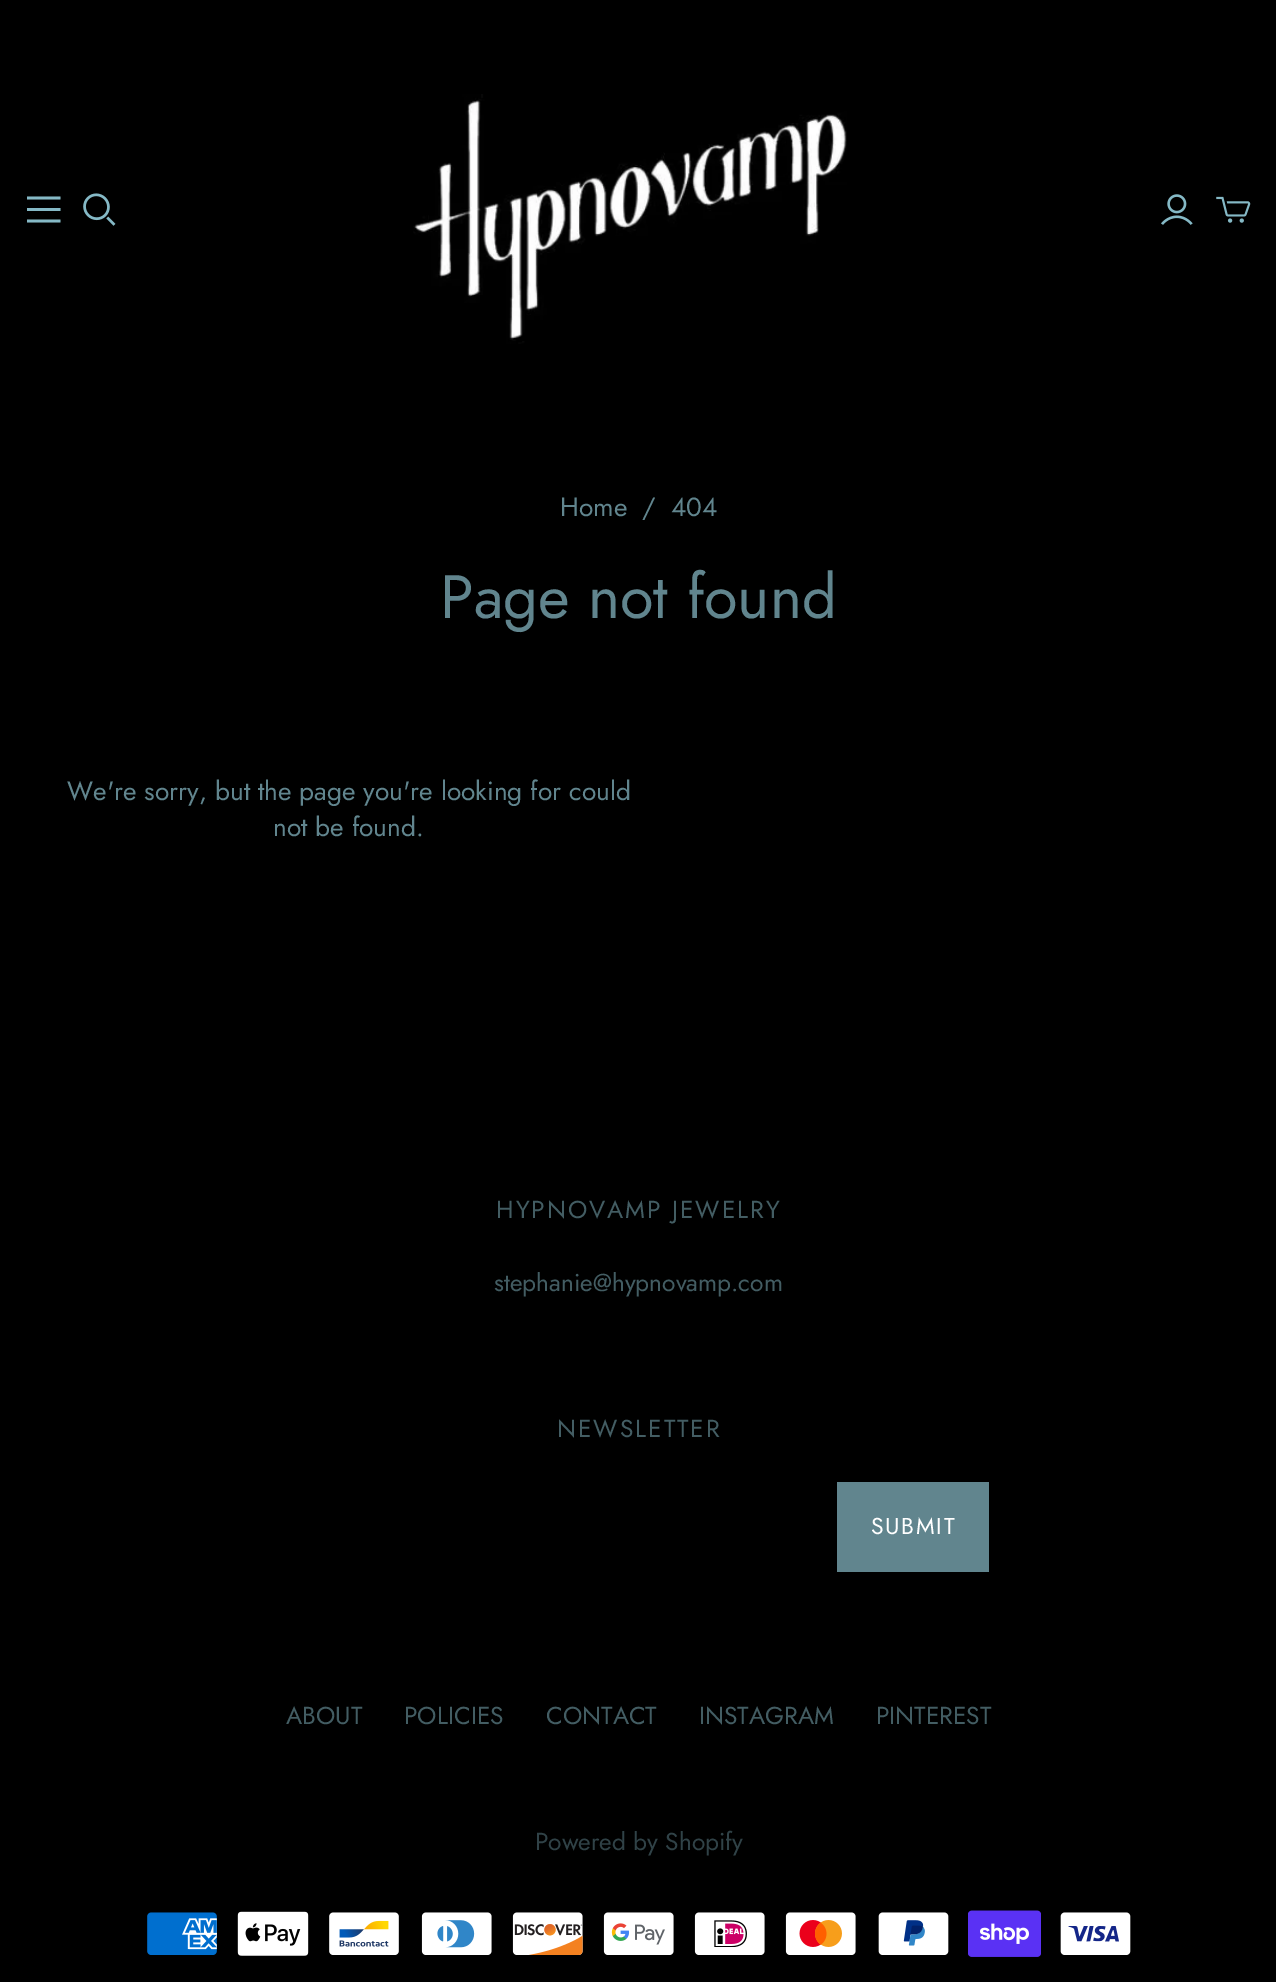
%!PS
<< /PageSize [1276 1982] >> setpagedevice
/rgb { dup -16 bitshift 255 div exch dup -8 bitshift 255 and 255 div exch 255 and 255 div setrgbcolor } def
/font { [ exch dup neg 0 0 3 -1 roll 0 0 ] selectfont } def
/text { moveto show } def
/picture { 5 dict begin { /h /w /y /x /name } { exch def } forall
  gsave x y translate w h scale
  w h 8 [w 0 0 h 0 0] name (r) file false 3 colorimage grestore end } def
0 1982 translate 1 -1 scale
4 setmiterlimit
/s1 { /Jost-Regular 26.25 font 16#61858E rgb } def
/s2 { /Jost-Regular 61.25 font 16#61858E rgb } def
/s3 { /Jost-Regular 24.5 font 16#435D63 rgb } def
/s4 { /Jost-Regular 24.5 font 16#304247 rgb } def
16#000000 rgb
0 0 1276 1982 rectfill
(pic1.raw) 413 94 434 250 picture
16#85B9C6 rgb
60.5 199.5 moveto 27 199.5 lineto 27 196.5 lineto 60.5 196.5 lineto closepath 60.5 211 moveto 27 211 lineto 27 208 lineto 60.5 208 lineto closepath 27 222.5 moveto 60.5 222.5 lineto 60.5 219.5 lineto 27 219.5 lineto closepath eofill
(pic2.raw) 83 193 33 33 picture
(pic3.raw) 1161 194 32 31 picture
(pic4.raw) 1216 196 35 27 picture
s1
(Home) 560 516 text
(/) 642 516 text
(404) 671 516 text
s2
(Page not found) 440 618 text
s1
(We're sorry, but the page you're looking for could) 67 800 text
(not be found.) 273 836 text
/Jost-Regular 24.5 font
16#435D63 rgb
496 1218 moveto 2 0 (HYPNOVAMP JEWELRY) ashow
(stephanie@hypnovamp.com) 494 1291 text
557 1437 moveto 2 0 (NEWSLETTER) ashow
16#61858E rgb
837 1482 152 90 rectfill
/Jost-Regular 23 font
16#FFFFFF rgb
871 1534 moveto 1.75 0 (SUBMIT) ashow
s3
(ABOUT) 286 1724 text
(POLICIES) 404 1724 text
(CONTACT) 546 1724 text
(INSTAGRAM) 699 1724 text
(PINTEREST) 876 1724 text
s4
(Powered by Shopify) 535 1850 text
(pic5.raw) 147 1912 70 43 picture
(pic6.raw) 237 1911 72 45 picture
(pic7.raw) 329 1912 70 43 picture
(pic8.raw) 421 1912 71 43 picture
(pic9.raw) 512 1912 71 43 picture
(pic10.raw) 603 1912 71 43 picture
(pic11.raw) 694 1912 71 43 picture
(pic12.raw) 785 1912 71 43 picture
(pic13.raw) 878 1912 71 43 picture
(pic14.raw) 968 1910 73 47 picture
(pic15.raw) 1060 1912 71 43 picture
showpage
